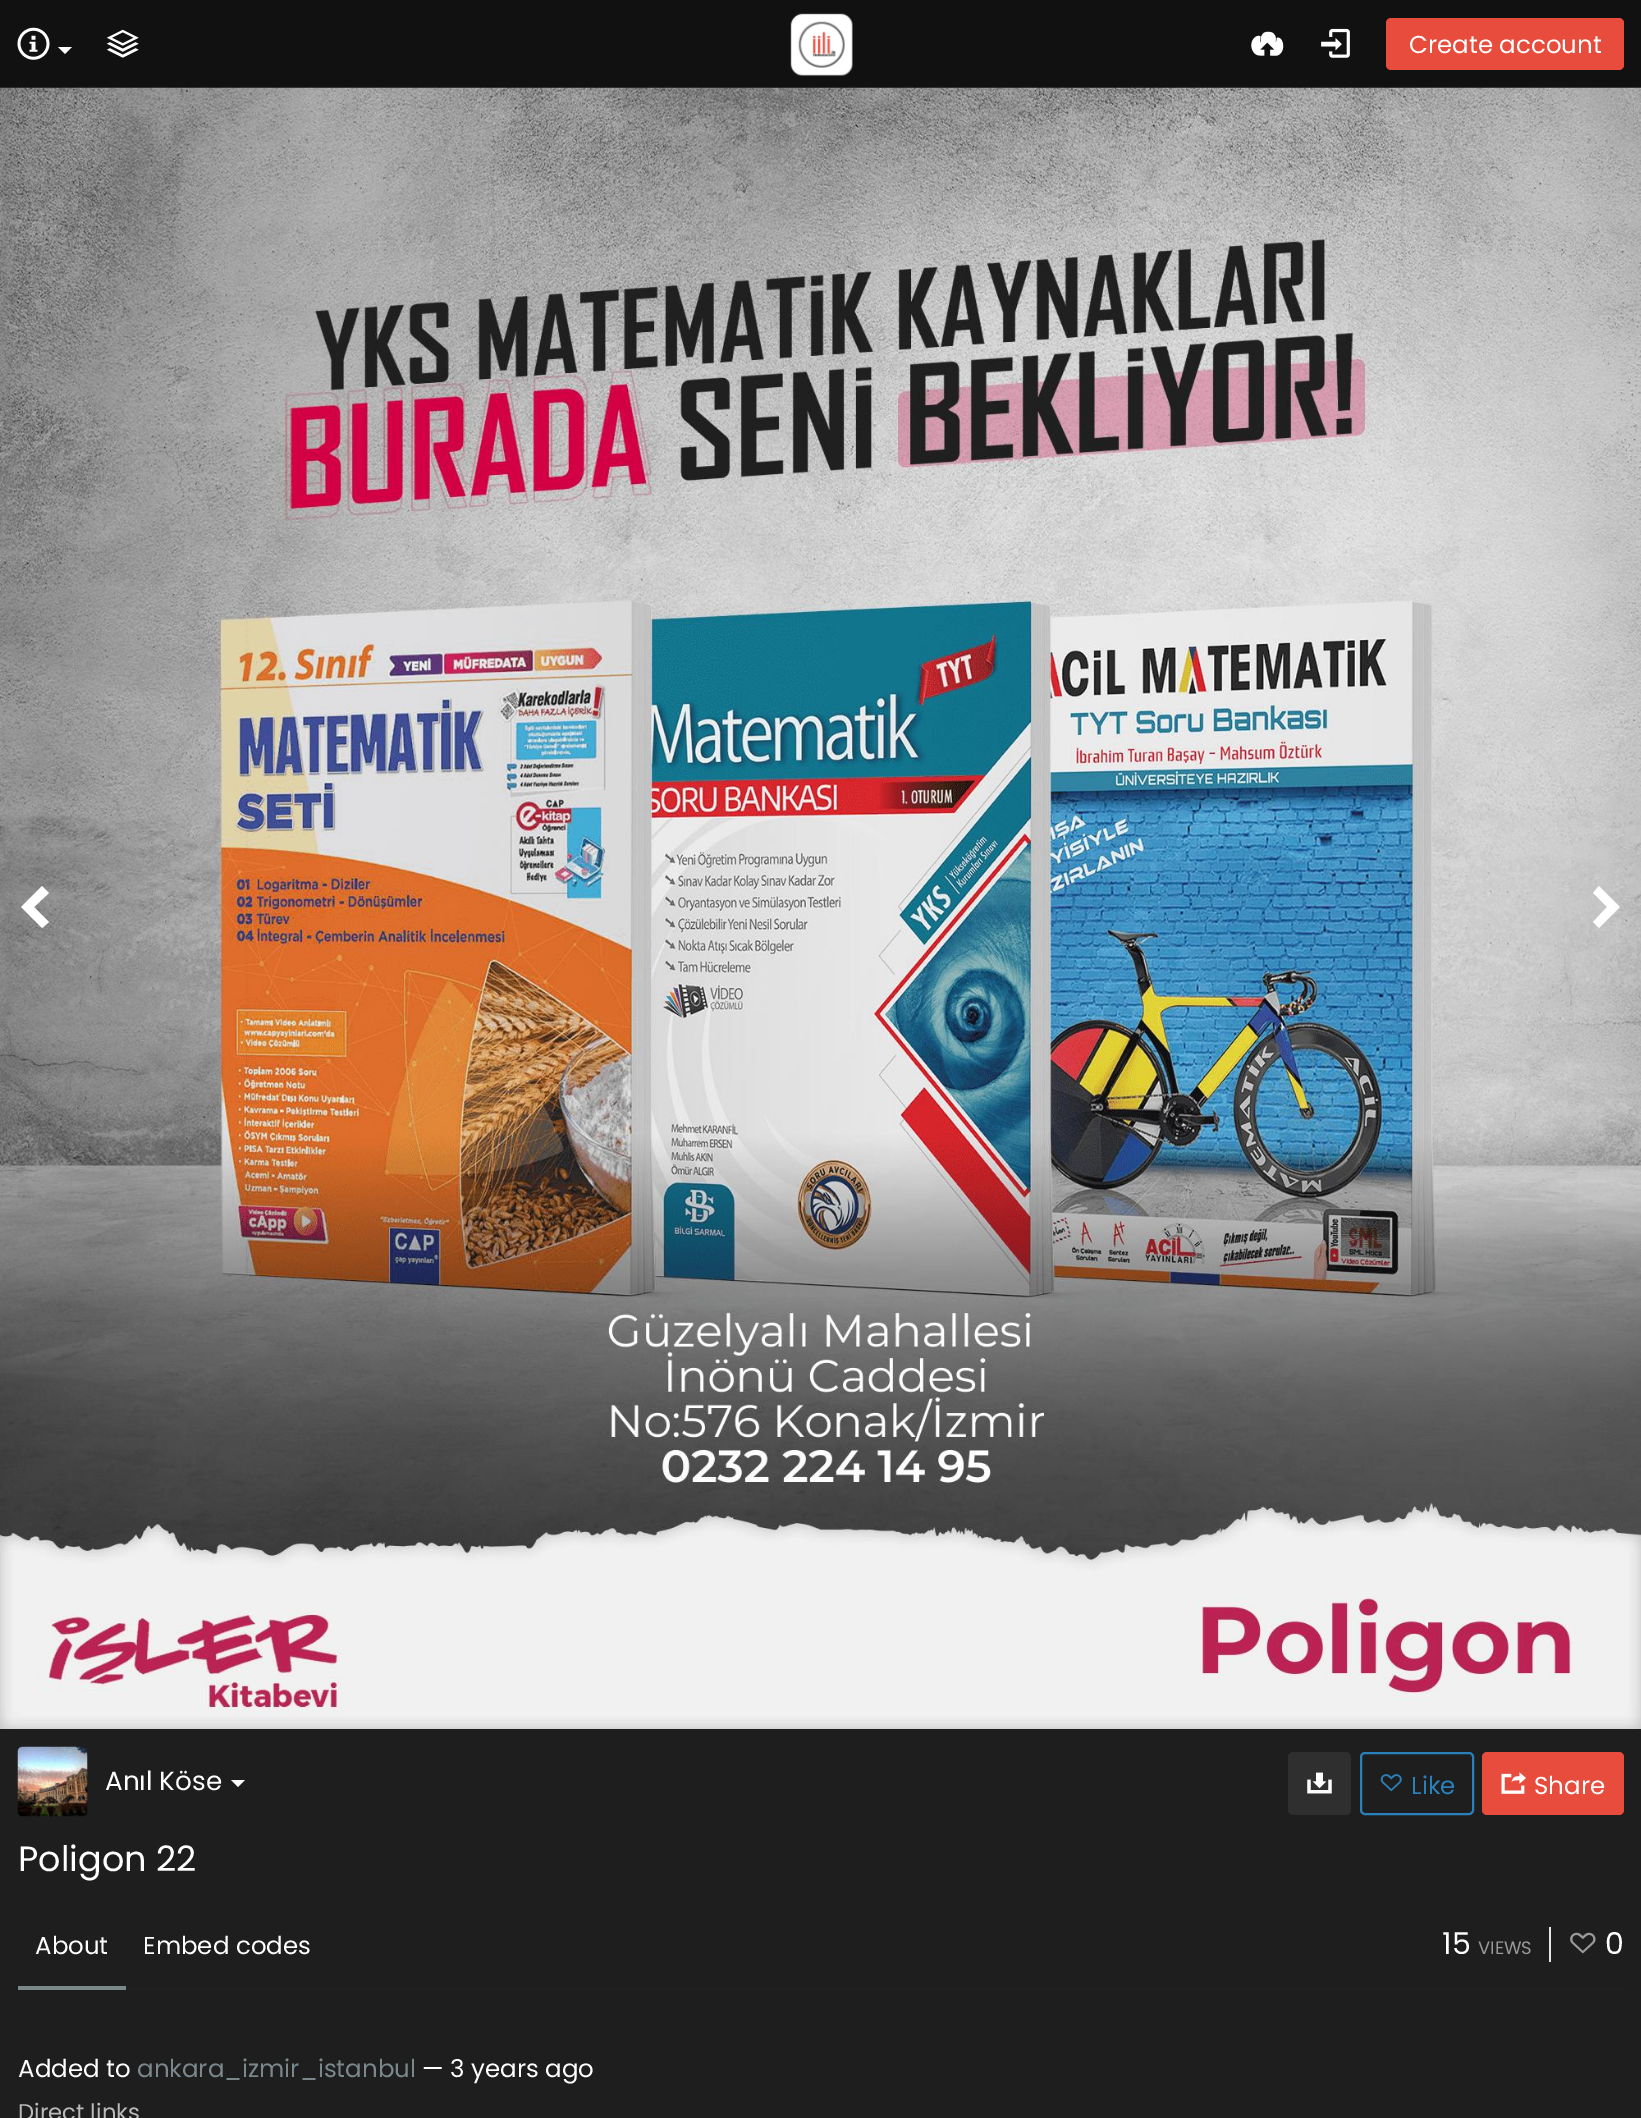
%!PS
<< /PageSize [1641 2118] >> setpagedevice
/rgb { dup -16 bitshift 255 div exch dup -8 bitshift 255 and 255 div exch 255 and 255 div setrgbcolor } def
/font { [ exch dup neg 0 0 3 -1 roll 0 0 ] selectfont } def
/text { moveto show } def
/roundrect { 5 dict begin { /r /h /w /y /x } { exch def } forall
  x r add y moveto x w add y 2 copy h add r arct x w add y h add x 1 index r arct
  x y h add x y r arct x y 2 copy exch w add exch r arct closepath end } def
/picture { 5 dict begin { /h /w /y /x /name } { exch def } forall
  gsave x y translate w h scale
  w h 8 [w 0 0 h 0 0] name (r) file false 3 colorimage grestore end } def
0 2118 translate 1 -1 scale
4 setmiterlimit
/s1 { /Poppins-Regular 24.5 font 16#FFFFFF rgb } def
/s2 { /Poppins-Regular 26.25 font 16#FFFFFF rgb } def
/s3 { /Poppins-Regular 24.5 font 16#2A80B9 rgb } def
/s4 { /Poppins-Regular 35 font 16#FFFFFF rgb } def
/s5 { /Poppins-Regular 30 font 16#FFFFFF rgb } def
/s6 { /Poppins-Regular 18 font 16#999999 rgb } def
/s7 { /Poppins-Regular 24.5 font 16#7A888C rgb } def
/s8 { /Poppins-Regular 22.75 font 16#BBBBBB rgb } def
16#1E1E1E rgb
0 0 1641 2118 rectfill
16#111111 rgb
0 0 1641 88 rectfill
(pic1.raw) 17 27 33 33 picture
16#FFFFFF rgb
58 47 moveto 72 47 lineto 65 54 lineto closepath fill
(pic2.raw) 106 29 33 29 picture
(pic3.raw) 790 13 63 63 picture
(pic4.raw) 1251 31 33 25 picture
(pic5.raw) 1321 28 29 30 picture
16#E84C3D rgb
1386 18 238 52 5 roundrect fill
s1
(Create account) 1409 53 text
(pic6.raw) 0 87 1641 1642 picture
42 886 moveto 21 907 lineto 42 928 lineto 49 922 lineto 34 907 lineto 49 893 lineto closepath fill
1599 886 moveto 1620 907 lineto 1599 928 lineto 1593 922 lineto 1607 907 lineto 1593 893 lineto closepath fill
(pic7.raw) 17 1746 71 71 picture
s2
(Anıl Köse) 105 1790 text
231 1780 moveto 245 1780 lineto 238 1787 lineto closepath fill
16#2F2F2F rgb
1288 1752 63 63 5 roundrect fill
(pic8.raw) 1307 1772 25 22 picture
16#2A80B9 rgb
2 setlinewidth
1361 1753 112 61 4 roundrect stroke
(pic9.raw) 1380 1774 22 18 picture
s3
(Like) 1411 1794 text
16#E84C3D rgb
1482 1752 142 63 5 roundrect fill
(pic10.raw) 1501 1772 25 22 picture
s1
(Share) 1534 1794 text
s4
(Poligon 22) 18 1871 text
16#212121 rgb
126 1988 1498 2 rectfill
16#7A888C rgb
18 1986 108 4 rectfill
s1
(About) 35 1954 text
(Embed codes) 143 1954 text
s5
(15) 1442 1954 text
s6
(VIEWS) 1478 1954 text
16#E5E5E5 rgb
1549 1927 2 35 rectfill
(pic11.raw) 1570 1932 26 22 picture
s5
(0) 1605 1954 text
s1
(Added to) 18 2077 text
s7
(ankara_izmir_istanbul) 137 2077 text
s1
(— 3 years ago) 422 2077 text
s8
(Direct links) 18 2120 text
showpage
